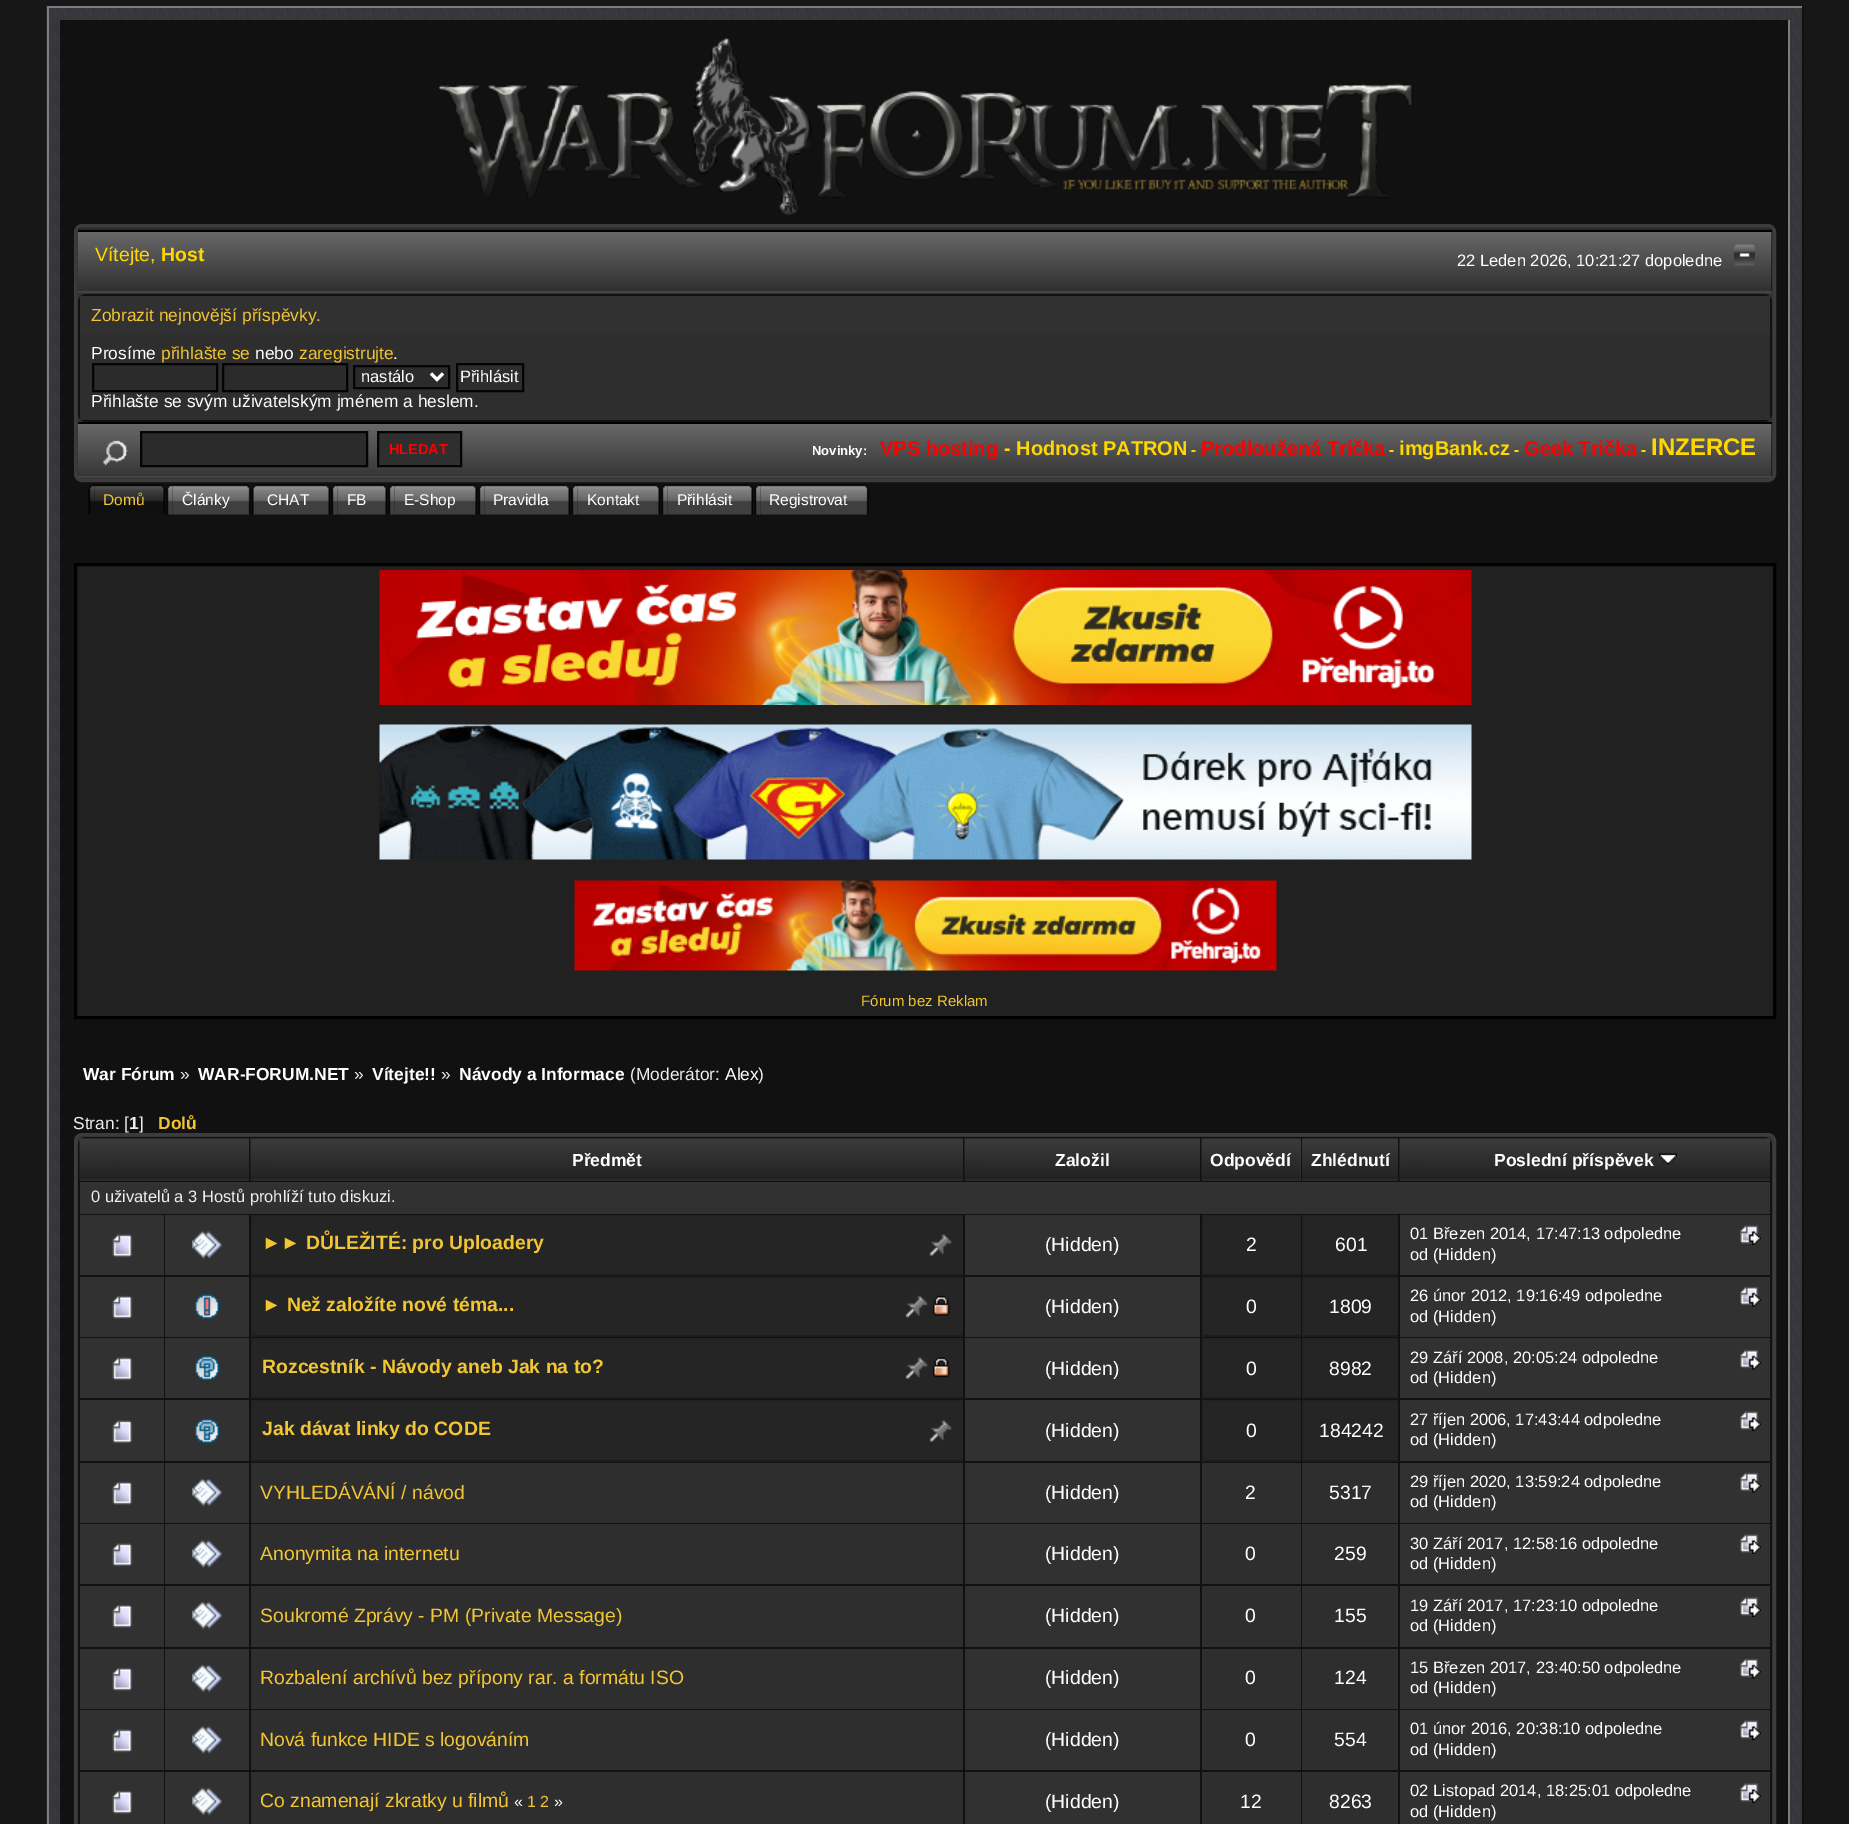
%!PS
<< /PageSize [1849 1824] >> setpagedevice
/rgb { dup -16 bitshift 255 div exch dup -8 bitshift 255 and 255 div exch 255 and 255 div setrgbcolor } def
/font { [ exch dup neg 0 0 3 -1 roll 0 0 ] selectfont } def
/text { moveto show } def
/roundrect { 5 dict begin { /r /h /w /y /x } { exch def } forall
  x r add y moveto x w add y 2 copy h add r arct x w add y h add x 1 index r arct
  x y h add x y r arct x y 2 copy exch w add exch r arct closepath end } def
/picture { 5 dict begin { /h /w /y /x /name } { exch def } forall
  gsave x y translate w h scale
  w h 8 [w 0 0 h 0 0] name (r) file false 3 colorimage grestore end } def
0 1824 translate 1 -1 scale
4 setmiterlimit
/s1 { /LiberationSans-Regular 19.4 font 16#FFD700 rgb } def
/s2 { /LiberationSans-Bold 19.4 font 16#FFD700 rgb } def
/s3 { /LiberationSans-Regular 16.5 font 16#FFFFFF rgb } def
/s4 { /LiberationSans-Regular 17.4 font 16#F1C534 rgb } def
/s5 { /LiberationSans-Regular 17.4 font 16#FFFFFF rgb } def
/s6 { /LiberationSans-Bold 14.5 font 16#FF0000 rgb } def
/s7 { /LiberationSans-Bold 13 font 16#FFFFFF rgb } def
/s8 { /LiberationSans-Bold 20 font 16#FF0000 rgb } def
/s9 { /LiberationSans-Bold 20 font 16#FFD700 rgb } def
/s10 { /LiberationSans-Bold 15.5 font 16#FFD700 rgb } def
/s11 { /LiberationSans-Bold 24 font 16#FFD700 rgb } def
/s12 { /LiberationSans-Regular 15.5 font 16#F1C534 rgb } def
/s13 { /LiberationSans-Regular 15.5 font 16#FFFFFF rgb } def
/s14 { /LiberationSans-Regular 15 font 16#F1C534 rgb } def
/s15 { /LiberationSans-Bold 17.4 font 16#FFFFFF rgb } def
/s16 { /LiberationSans-Regular 17.4 font 16#EEEEEE rgb } def
/s17 { /LiberationSans-Bold 17.4 font 16#EEEEEE rgb } def
/s18 { /LiberationSans-Bold 17.4 font 16#F1C534 rgb } def
/s19 { /LiberationSans-Bold 17.5 font 16#FFFFFF rgb } def
/s20 { /LiberationSans-Regular 16.5 font 16#EEEEEE rgb } def
/s21 { /LiberationSans-Bold 19.4 font 16#F1C534 rgb } def
/s22 { /LiberationSans-Regular 19.4 font 16#FFFFFF rgb } def
/s23 { /LiberationSans-Regular 19.4 font 16#F1C534 rgb } def
/s24 { /LiberationSans-Regular 16 font 16#FFFFFF rgb } def
/s25 { /LiberationSans-Regular 16 font 16#F1C534 rgb } def
16#171717 rgb
0 0 1849 1824 rectfill
(pic1.raw) 46 6 1756 1818 picture
16#7C7C7C rgb
47 6 1756 2 rectfill
16#111111 rgb
1802 6 2 1818 rectfill
16#7C7C7C rgb
47 6 2 1818 rectfill
16#111111 rgb
60 20 1728 1804 rectfill
16#7C7C7C rgb
1788 20 2 1804 rectfill
(pic2.raw) 438 37 975 178 picture
16#333333 rgb
75.5 225.5 1699 255 6.5 roundrect gsave fill grestore
16#3C3C3C rgb
3 setlinewidth
stroke
16#2A2A2A rgb
78 228 1694 2 rectfill
16#000000 rgb
1771 232 1 59 rectfill
(pic3.raw) 78 232 1694 59 picture
78 230 1694 2 rectfill
16#434343 rgb
78 291 1694 2 rectfill
s1
(Vítejte,) 95 261 text
s2
(Host) 161 261 text
s3
(22 Leden 2026, 10:21:27 dopoledne) 1457 266 text
(pic4.raw) 1734 244 21 22 picture
16#111111 rgb
78 294 1694 128 8 roundrect fill
16#313131 rgb
80 296 1690 37 rectfill
s4
(Zobrazit nejnovější příspěvky.) 91 321 text
16#2E2E2E rgb
80 333 1690 87 rectfill
s5
(Prosíme) 91 359 text
s4
(přihlašte se) 161 359 text
s5
(nebo) 255 359 text
s4
(zaregistrujte) 299 359 text
s5
(.) 393 359 text
16#2B2B2B rgb
93 364 moveto 217 364 lineto 217 391 lineto 93 391 lineto closepath gsave fill grestore
16#040404 rgb
2 setlinewidth
stroke
16#2B2B2B rgb
223 364 moveto 347 364 lineto 347 391 lineto 223 391 lineto closepath gsave fill grestore
16#040404 rgb
stroke
16#2B2B2B rgb
354 366 moveto 449 366 lineto 449 388 lineto 354 388 lineto closepath gsave fill grestore
16#040404 rgb
stroke
16#FFFFFF rgb
3 setlinewidth
431 373.5 moveto 437 379.5 lineto 443 373.5 lineto stroke
s3
(nastálo) 361 382 text
16#040404 rgb
2 setlinewidth
457 364 66 27 rectstroke
s3
(Přihlásit) 460 382 text
s5
(Přihlašte se svým uživatelským jménem a heslem.) 91 407 text
16#000000 rgb
1771 424 1 52 rectfill
(pic5.raw) 78 424 1694 52 picture
78 422 1694 2 rectfill
16#434343 rgb
78 476 1694 2 rectfill
(pic6.raw) 103 440 25 26 picture
16#2B2B2B rgb
141 432 moveto 367 432 lineto 367 466 lineto 141 466 lineto closepath gsave fill grestore
16#040404 rgb
stroke
16#2F2F2F rgb
378 432 moveto 461 432 lineto 461 466 lineto 378 466 lineto closepath gsave fill grestore
16#040404 rgb
stroke
s6
(HLEDAT) 389 454 text
s7
(Novinky:) 812 455 text
s8
(VPS hosting) 880 455 text
s9
(- Hodnost PATRON) 1004 455 text
s10
(-) 1191 455 text
s8
(Prodloužená Trička) 1201 455 text
s10
(-) 1389 455 text
s9
(imgBank.cz) 1399 455 text
s10
(-) 1514 455 text
s8
(Geek Trička) 1524 455 text
s10
(-) 1641 455 text
s11
(INZERCE) 1651 455 text
(pic7.raw) 88 484 7 31 picture
(pic8.raw) 94 484 71 31 picture
s12
(Domů) 103 505 text
(pic9.raw) 166 484 7 31 picture
(pic10.raw) 172 484 79 31 picture
s13
(Články) 182 505 text
(pic11.raw) 252 484 6 31 picture
(pic12.raw) 258 484 72 31 picture
(CHAT) 267 505 text
(pic9.raw) 331 484 7 31 picture
(pic13.raw) 337 484 50 31 picture
(FB) 347 505 text
(pic14.raw) 388 484 7 31 picture
(pic15.raw) 394 484 83 31 picture
(E-Shop) 404 505 text
(pic9.raw) 478 484 7 31 picture
(pic16.raw) 484 484 86 31 picture
(Pravidla) 493 505 text
(pic14.raw) 571 484 7 31 picture
(pic17.raw) 577 484 83 31 picture
(Kontakt) 587 505 text
(pic14.raw) 661 484 7 31 picture
(pic18.raw) 667 484 86 31 picture
(Přihlásit) 677 505 text
(pic14.raw) 754 484 7 31 picture
(pic19.raw) 760 484 109 31 picture
(Registrovat) 769 505 text
16#212121 rgb
75.5 564.5 moveto 1774.5 564.5 lineto 1774.5 1017.5 lineto 75.5 1017.5 lineto closepath gsave fill grestore
16#000000 rgb
3 setlinewidth
stroke
(pic20.raw) 379 570 1093 135 picture
(pic21.raw) 379 724 1093 136 picture
(pic22.raw) 574 880 703 91 picture
s14
(Fórum bez Reklam) 861 1006 text
s15
(War Fórum) 83 1080 text
s16
(») 180 1080 text
s15
(WAR-FORUM.NET) 198 1080 text
s16
(») 354 1080 text
s15
(Vítejte!!) 372 1080 text
s16
(») 441 1080 text
s15
(Návody a Informace) 459 1080 text
s16
(\(Moderátor:) 630 1080 text
s5
(Alex) 725 1080 text
s16
(\)) 758 1080 text
(Stran: [) 73 1129 text
s17
(1) 129 1129 text
s16
(]) 139 1129 text
s18
(Dolů) 158 1129 text
16#333333 rgb
75.5 1134.5 1699 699 6.5 roundrect gsave fill grestore
16#3C3C3C rgb
stroke
16#111111 rgb
78 1137 1694 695 8 roundrect fill
(pic23.raw) 79 1138 170 43 picture
16#2A2A2A rgb
80 1179 169 2 rectfill
(pic24.raw) 250 1138 713 43 picture
251 1179 712 2 rectfill
s19
(Předmět) 572 1166 text
(pic25.raw) 964 1138 236 43 picture
16#2A2A2A rgb
965 1179 235 2 rectfill
s19
(Založil) 1055 1166 text
16#3A3A3A rgb
1300 1139 1 40 rectfill
(pic26.raw) 1201 1138 100 43 picture
16#2A2A2A rgb
1202 1179 99 2 rectfill
s19
(Odpovědí) 1210 1166 text
(pic27.raw) 1302 1138 96 41 picture
16#2A2A2A rgb
1302 1179 96 2 rectfill
s19
(Zhlédnutí) 1311 1166 text
(pic28.raw) 1399 1138 371 43 picture
16#2A2A2A rgb
1400 1179 370 2 rectfill
s19
(Poslední příspěvek) 1494 1166 text
(pic29.raw) 1659 1153 18 12 picture
16#313131 rgb
80 1182 1690 32 rectfill
s20
(0 uživatelů a 3 Hostů prohlíží tuto diskuzi.) 91 1202 text
16#313131 rgb
80 1215 84 60 rectfill
(pic30.raw) 112 1234 21 24 picture
165 1215 84 60 rectfill
(pic31.raw) 192 1231 30 28 picture
16#252525 rgb
253 1217 710 57 rectfill
16#222222 rgb
251 1215 712 2 rectfill
16#1C1C1C rgb
251 1274 712 2 rectfill
16#222222 rgb
251 1215 2 60 rectfill
s21
(►► DŮLEŽITÉ: pro Uploadery) 262 1249 text
(pic32.raw) 929 1234 23 22 picture
16#313131 rgb
965 1215 235 60 rectfill
s22
(\(Hidden\)) 1045 1251 text
16#252525 rgb
1204 1217 97 57 rectfill
16#222222 rgb
1202 1215 99 2 rectfill
16#1C1C1C rgb
1202 1274 99 2 rectfill
16#222222 rgb
1202 1215 2 60 rectfill
s22
(2) 1246 1251 text
16#252525 rgb
1304 1217 94 57 rectfill
16#222222 rgb
1302 1215 96 2 rectfill
16#1C1C1C rgb
1302 1274 96 2 rectfill
16#222222 rgb
1302 1215 2 60 rectfill
s22
(601) 1335 1251 text
16#313131 rgb
1400 1215 370 60 rectfill
s3
(01 Březen 2014, 17:47:13 odpoledne) 1410 1239 text
(pic33.raw) 1740 1225 21 20 picture
(od \(Hidden\)) 1410 1260 text
16#313131 rgb
80 1277 84 60 rectfill
(pic34.raw) 112 1295 21 24 picture
165 1277 84 60 rectfill
(pic35.raw) 195 1294 24 25 picture
16#252525 rgb
253 1279 710 56 rectfill
16#222222 rgb
251 1277 712 2 rectfill
16#1C1C1C rgb
251 1335 712 2 rectfill
16#222222 rgb
251 1277 2 60 rectfill
s21
(► Než založíte nové téma...) 262 1311 text
(pic36.raw) 905 1295 23 23 picture
(pic37.raw) 932 1295 18 21 picture
16#313131 rgb
965 1277 235 60 rectfill
s22
(\(Hidden\)) 1045 1313 text
16#252525 rgb
1204 1279 97 56 rectfill
16#222222 rgb
1202 1277 99 2 rectfill
16#1C1C1C rgb
1202 1335 99 2 rectfill
16#222222 rgb
1202 1277 2 60 rectfill
s22
(0) 1246 1313 text
16#252525 rgb
1304 1279 94 56 rectfill
16#222222 rgb
1302 1277 96 2 rectfill
16#1C1C1C rgb
1302 1335 96 2 rectfill
16#222222 rgb
1302 1277 2 60 rectfill
s22
(1809) 1329 1313 text
16#313131 rgb
1400 1277 370 60 rectfill
s3
(26 únor 2012, 19:16:49 odpoledne) 1410 1301 text
(pic38.raw) 1740 1286 21 21 picture
(od \(Hidden\)) 1410 1322 text
16#313131 rgb
80 1338 84 60 rectfill
(pic30.raw) 112 1357 21 24 picture
165 1338 84 60 rectfill
(pic39.raw) 195 1356 24 24 picture
16#252525 rgb
253 1340 710 57 rectfill
16#222222 rgb
251 1338 712 2 rectfill
16#1C1C1C rgb
251 1397 712 2 rectfill
16#222222 rgb
251 1338 2 60 rectfill
s21
(Rozcestník - Návody aneb Jak na to?) 262 1373 text
(pic32.raw) 905 1357 23 22 picture
(pic40.raw) 932 1357 18 21 picture
16#313131 rgb
965 1338 235 60 rectfill
s22
(\(Hidden\)) 1045 1375 text
16#252525 rgb
1204 1340 97 57 rectfill
16#222222 rgb
1202 1338 99 2 rectfill
16#1C1C1C rgb
1202 1397 99 2 rectfill
16#222222 rgb
1202 1338 2 60 rectfill
s22
(0) 1246 1375 text
16#252525 rgb
1304 1340 94 57 rectfill
16#222222 rgb
1302 1338 96 2 rectfill
16#1C1C1C rgb
1302 1397 96 2 rectfill
16#222222 rgb
1302 1338 2 60 rectfill
s22
(8982) 1329 1375 text
16#313131 rgb
1400 1338 370 60 rectfill
s3
(29 Září 2008, 20:05:24 odpoledne) 1410 1363 text
(pic38.raw) 1740 1349 21 21 picture
(od \(Hidden\)) 1410 1383 text
16#313131 rgb
80 1400 84 61 rectfill
(pic30.raw) 112 1420 21 24 picture
165 1400 84 61 rectfill
(pic39.raw) 195 1419 24 24 picture
16#252525 rgb
253 1402 710 58 rectfill
16#222222 rgb
251 1400 712 2 rectfill
16#1C1C1C rgb
251 1460 712 2 rectfill
16#222222 rgb
251 1400 2 61 rectfill
s21
(Jak dávat linky do CODE) 262 1435 text
(pic32.raw) 929 1420 23 22 picture
16#313131 rgb
965 1400 235 61 rectfill
s22
(\(Hidden\)) 1045 1437 text
16#252525 rgb
1204 1402 97 58 rectfill
16#222222 rgb
1202 1400 99 2 rectfill
16#1C1C1C rgb
1202 1460 99 2 rectfill
16#222222 rgb
1202 1400 2 61 rectfill
s22
(0) 1246 1437 text
16#252525 rgb
1304 1402 94 58 rectfill
16#222222 rgb
1302 1400 96 2 rectfill
16#1C1C1C rgb
1302 1460 96 2 rectfill
16#222222 rgb
1302 1400 2 61 rectfill
s22
(184242) 1319 1437 text
16#313131 rgb
1400 1400 370 61 rectfill
s3
(27 říjen 2006, 17:43:44 odpoledne) 1410 1425 text
(pic33.raw) 1740 1411 21 20 picture
(od \(Hidden\)) 1410 1445 text
16#313131 rgb
80 1463 84 60 rectfill
(pic34.raw) 112 1481 21 24 picture
165 1463 84 60 rectfill
(pic41.raw) 192 1478 30 29 picture
16#2E2E2E rgb
251 1463 712 60 rectfill
s23
(VYHLEDÁVÁNÍ / návod) 260 1499 text
16#313131 rgb
965 1463 235 60 rectfill
s22
(\(Hidden\)) 1045 1499 text
16#2E2E2E rgb
1202 1463 99 60 rectfill
s22
(2) 1245 1499 text
16#2E2E2E rgb
1302 1463 96 60 rectfill
s22
(5317) 1329 1499 text
16#313131 rgb
1400 1463 370 60 rectfill
s3
(29 říjen 2020, 13:59:24 odpoledne) 1410 1487 text
(pic38.raw) 1740 1472 21 21 picture
(od \(Hidden\)) 1410 1507 text
16#313131 rgb
80 1524 84 60 rectfill
(pic30.raw) 112 1543 21 24 picture
165 1524 84 60 rectfill
(pic31.raw) 192 1540 30 28 picture
16#2E2E2E rgb
251 1524 712 60 rectfill
s23
(Anonymita na internetu) 260 1560 text
16#313131 rgb
965 1524 235 60 rectfill
s22
(\(Hidden\)) 1045 1560 text
16#2E2E2E rgb
1202 1524 99 60 rectfill
s22
(0) 1245 1560 text
16#2E2E2E rgb
1302 1524 96 60 rectfill
s22
(259) 1334 1560 text
16#313131 rgb
1400 1524 370 60 rectfill
s3
(30 Září 2017, 12:58:16 odpoledne) 1410 1549 text
(pic33.raw) 1740 1534 21 20 picture
(od \(Hidden\)) 1410 1569 text
16#313131 rgb
80 1586 84 61 rectfill
(pic34.raw) 112 1604 21 24 picture
165 1586 84 61 rectfill
(pic41.raw) 192 1601 30 29 picture
16#2E2E2E rgb
251 1586 712 61 rectfill
s23
(Soukromé Zprávy - PM \(Private Message\)) 260 1622 text
16#313131 rgb
965 1586 235 61 rectfill
s22
(\(Hidden\)) 1045 1622 text
16#2E2E2E rgb
1202 1586 99 61 rectfill
s22
(0) 1245 1622 text
16#2E2E2E rgb
1302 1586 96 61 rectfill
s22
(155) 1334 1622 text
16#313131 rgb
1400 1586 370 61 rectfill
s3
(19 Září 2017, 17:23:10 odpoledne) 1410 1611 text
(pic33.raw) 1740 1597 21 20 picture
(od \(Hidden\)) 1410 1631 text
16#313131 rgb
80 1649 84 60 rectfill
(pic34.raw) 112 1667 21 24 picture
165 1649 84 60 rectfill
(pic41.raw) 192 1664 30 29 picture
16#2E2E2E rgb
251 1649 712 60 rectfill
s23
(Rozbalení archívů bez přípony rar. a formátu ISO) 260 1684 text
16#313131 rgb
965 1649 235 60 rectfill
s22
(\(Hidden\)) 1045 1684 text
16#2E2E2E rgb
1202 1649 99 60 rectfill
s22
(0) 1245 1684 text
16#2E2E2E rgb
1302 1649 96 60 rectfill
s22
(124) 1334 1684 text
16#313131 rgb
1400 1649 370 60 rectfill
s3
(15 Březen 2017, 23:40:50 odpoledne) 1410 1673 text
(pic38.raw) 1740 1658 21 21 picture
(od \(Hidden\)) 1410 1693 text
16#313131 rgb
80 1710 84 60 rectfill
(pic30.raw) 112 1729 21 24 picture
165 1710 84 60 rectfill
(pic31.raw) 192 1726 30 28 picture
16#2E2E2E rgb
251 1710 712 60 rectfill
s23
(Nová funkce HIDE s logováním) 260 1746 text
16#313131 rgb
965 1710 235 60 rectfill
s22
(\(Hidden\)) 1045 1746 text
16#2E2E2E rgb
1202 1710 99 60 rectfill
s22
(0) 1245 1746 text
16#2E2E2E rgb
1302 1710 96 60 rectfill
s22
(554) 1334 1746 text
16#313131 rgb
1400 1710 370 60 rectfill
s3
(01 únor 2016, 20:38:10 odpoledne) 1410 1734 text
(pic33.raw) 1740 1720 21 20 picture
(od \(Hidden\)) 1410 1755 text
16#313131 rgb
80 1772 84 52 rectfill
(pic34.raw) 112 1790 21 24 picture
165 1772 84 52 rectfill
(pic41.raw) 192 1787 30 29 picture
16#2E2E2E rgb
251 1772 712 52 rectfill
s23
(Co znamenají zkratky u filmů) 260 1807 text
s24
(«) 514 1807 text
s25
(1 2) 527 1807 text
s24
(») 554 1807 text
16#313131 rgb
965 1772 235 52 rectfill
s22
(\(Hidden\)) 1045 1808 text
16#2E2E2E rgb
1202 1772 99 52 rectfill
s22
(12) 1240 1808 text
16#2E2E2E rgb
1302 1772 96 52 rectfill
s22
(8263) 1329 1808 text
16#313131 rgb
1400 1772 370 52 rectfill
s3
(02 Listopad 2014, 18:25:01 odpoledne) 1410 1796 text
(pic33.raw) 1740 1783 21 20 picture
(od \(Hidden\)) 1410 1817 text
showpage
